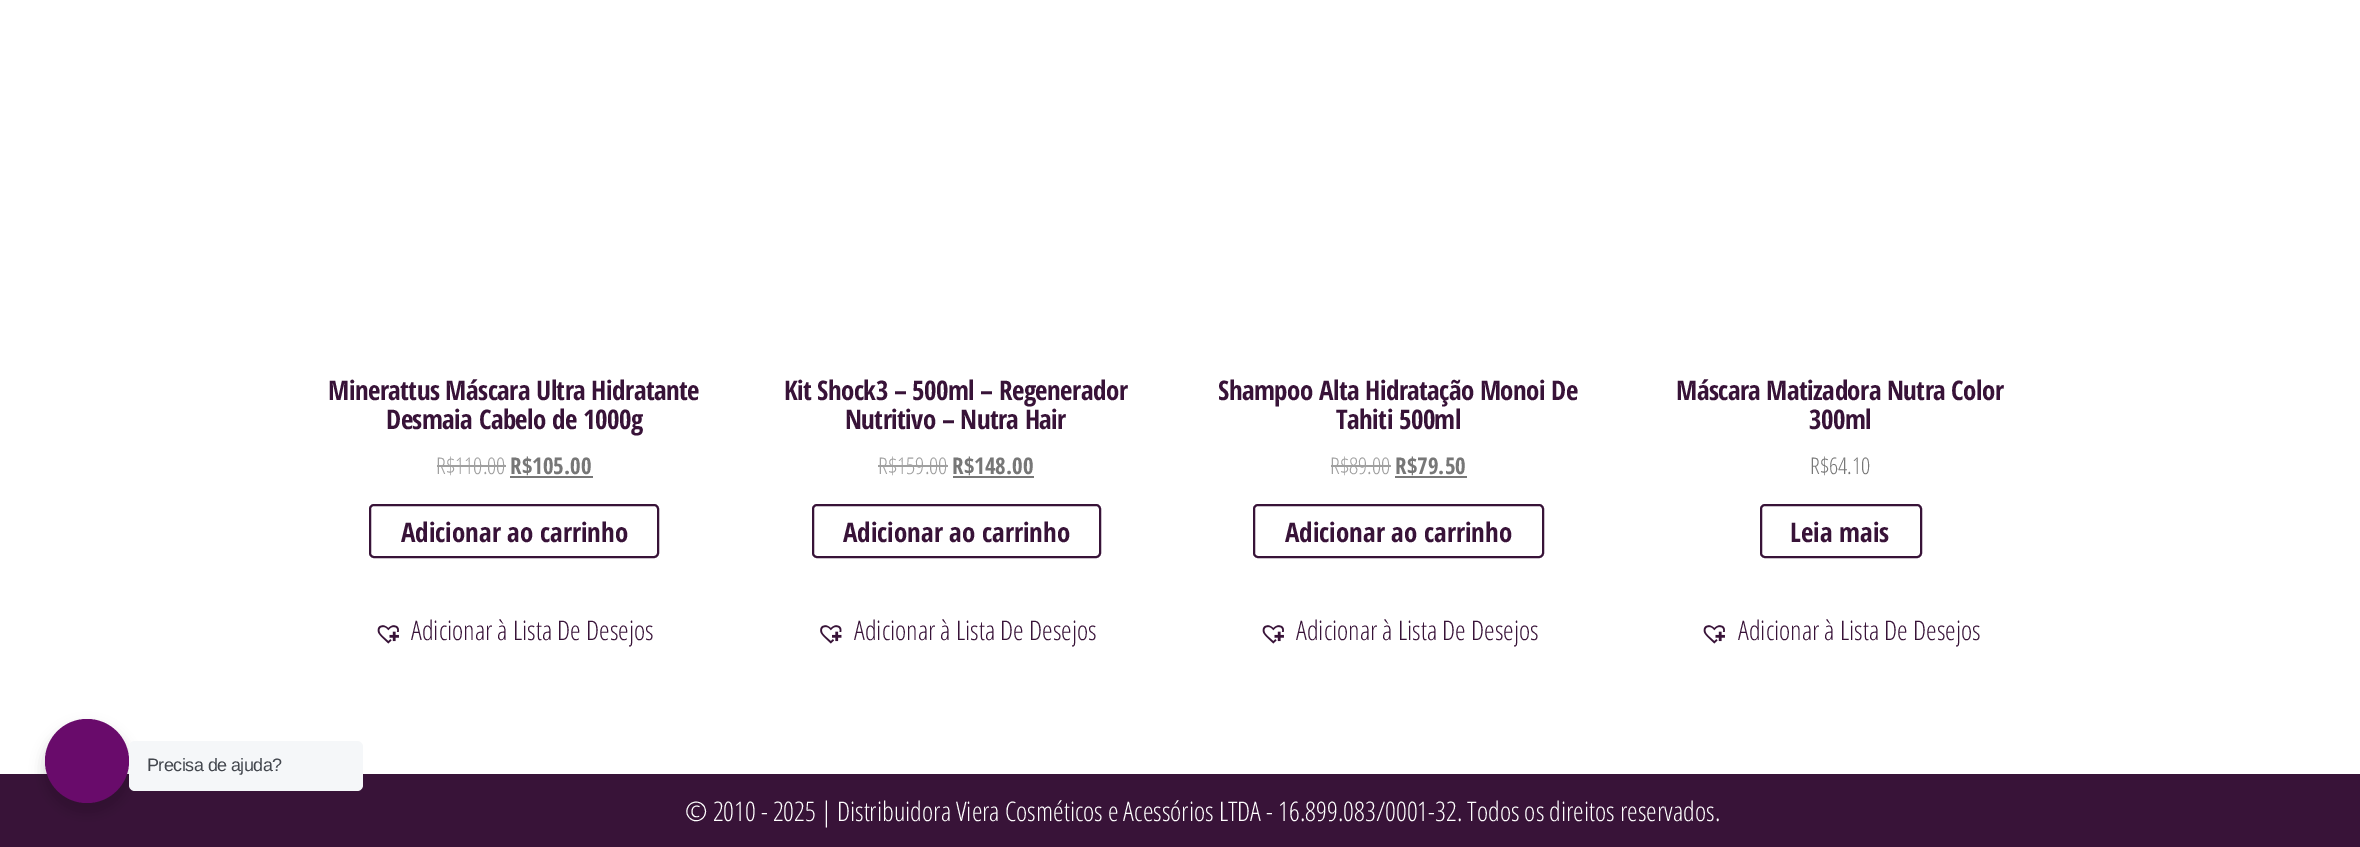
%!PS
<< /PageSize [2360 847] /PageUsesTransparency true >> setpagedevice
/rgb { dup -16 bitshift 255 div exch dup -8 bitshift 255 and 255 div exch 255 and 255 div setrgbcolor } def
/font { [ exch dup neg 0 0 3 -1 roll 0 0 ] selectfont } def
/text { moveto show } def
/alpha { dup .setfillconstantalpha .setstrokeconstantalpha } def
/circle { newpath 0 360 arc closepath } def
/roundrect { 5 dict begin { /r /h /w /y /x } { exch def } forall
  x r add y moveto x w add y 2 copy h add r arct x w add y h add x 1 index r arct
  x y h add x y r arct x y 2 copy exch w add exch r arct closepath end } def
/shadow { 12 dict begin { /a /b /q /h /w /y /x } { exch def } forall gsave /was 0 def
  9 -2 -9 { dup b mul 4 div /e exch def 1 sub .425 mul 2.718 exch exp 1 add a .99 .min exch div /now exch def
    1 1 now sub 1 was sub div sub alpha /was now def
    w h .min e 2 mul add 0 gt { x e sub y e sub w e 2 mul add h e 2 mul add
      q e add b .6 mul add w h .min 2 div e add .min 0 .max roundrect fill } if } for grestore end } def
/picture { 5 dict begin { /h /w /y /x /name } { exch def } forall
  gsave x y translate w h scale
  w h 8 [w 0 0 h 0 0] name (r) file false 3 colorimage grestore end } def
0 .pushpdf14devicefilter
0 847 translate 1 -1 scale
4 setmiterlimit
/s1 { /OpenSansCondensed-Light 23 font 16#A0A0A0 rgb } def
/s2 { /OpenSansCondensed-Bold 23 font 16#777777 rgb } def
/s3 { /OpenSansCondensed-Bold 27 font 16#381338 rgb } def
/s4 { /OpenSansCondensed-Light 27 font 16#381338 rgb } def
/s5 { /OpenSansCondensed-Light 23 font 16#777777 rgb } def
/s6 { /OpenSansCondensed-Light 27 font 16#FFFFFF rgb } def
16#FFFFFF rgb
0 0 2360 847 rectfill
16#381338 rgb
0 774 2360 73 rectfill
16#000000 rgb
42 725 90 90 45 6 0.14 shadow
16#690B6B rgb
87 761 42 circle fill
16#F5F7F9 rgb
129 741 234 50 6 roundrect fill
/LiberationSans-Regular 18 font
16#43474E rgb
147 771 moveto -0.55 0 (Precisa de ajuda?) ashow
/OpenSansCondensed-Bold 27 font
16#381338 rgb
328 400 moveto -0.55 0 (Minerattus Máscara Ultra Hidratante) ashow
386 429 moveto -0.55 0 (Desmaia Cabelo de 1000g) ashow
s1
(R$110.00) 436 474 text
437 465 69 2 rectfill
s2
(R$105.00) 510 474 text
510 476 83 2 rectfill
16#381338 rgb
2 setlinewidth
370 505 288 52 4 roundrect stroke
s3
(Adicionar ao carrinho) 401 542 text
(pic1.raw) 377 625 22 19 picture
s4
(Adicionar à Lista De Desejos) 411 640 text
/OpenSansCondensed-Bold 27 font
784 400 moveto -0.55 0 (Kit Shock3 – 500ml – Regenerador) ashow
845 429 moveto -0.55 0 (Nutritivo – Nutra Hair) ashow
s1
(R$159.00) 878 474 text
878 465 70 2 rectfill
s2
(R$148.00) 952 474 text
953 476 81 2 rectfill
16#381338 rgb
813 505 287 52 4 roundrect stroke
s3
(Adicionar ao carrinho) 843 542 text
(pic2.raw) 820 625 22 19 picture
s4
(Adicionar à Lista De Desejos) 854 640 text
/OpenSansCondensed-Bold 27 font
1218 400 moveto -0.55 0 (Shampoo Alta Hidratação Monoi De) ashow
1336 429 moveto -0.55 0 (Tahiti 500ml) ashow
s1
(R$89.00) 1330 474 text
1331 465 60 2 rectfill
s2
(R$79.50) 1395 474 text
1395 476 72 2 rectfill
16#381338 rgb
1254 505 289 52 4 roundrect stroke
s3
(Adicionar ao carrinho) 1285 542 text
(pic1.raw) 1262 625 22 19 picture
s4
(Adicionar à Lista De Desejos) 1296 640 text
/OpenSansCondensed-Bold 27 font
1676 400 moveto -0.55 0 (Máscara Matizadora Nutra Color) ashow
1809 429 moveto -0.55 0 (300ml) ashow
s5
(R$64.10) 1810 474 text
16#381338 rgb
1761 505 160 52 4 roundrect stroke
s3
(Leia mais) 1790 542 text
(pic1.raw) 1703 625 22 19 picture
s4
(Adicionar à Lista De Desejos) 1738 640 text
s6
(© 2010 - 2025 | Distribuidora Viera Cosméticos e Acessórios LTDA - 16.899.083/0001-32. Todos os direitos reservados.) 685 821 text
.poppdf14devicefilter showpage
